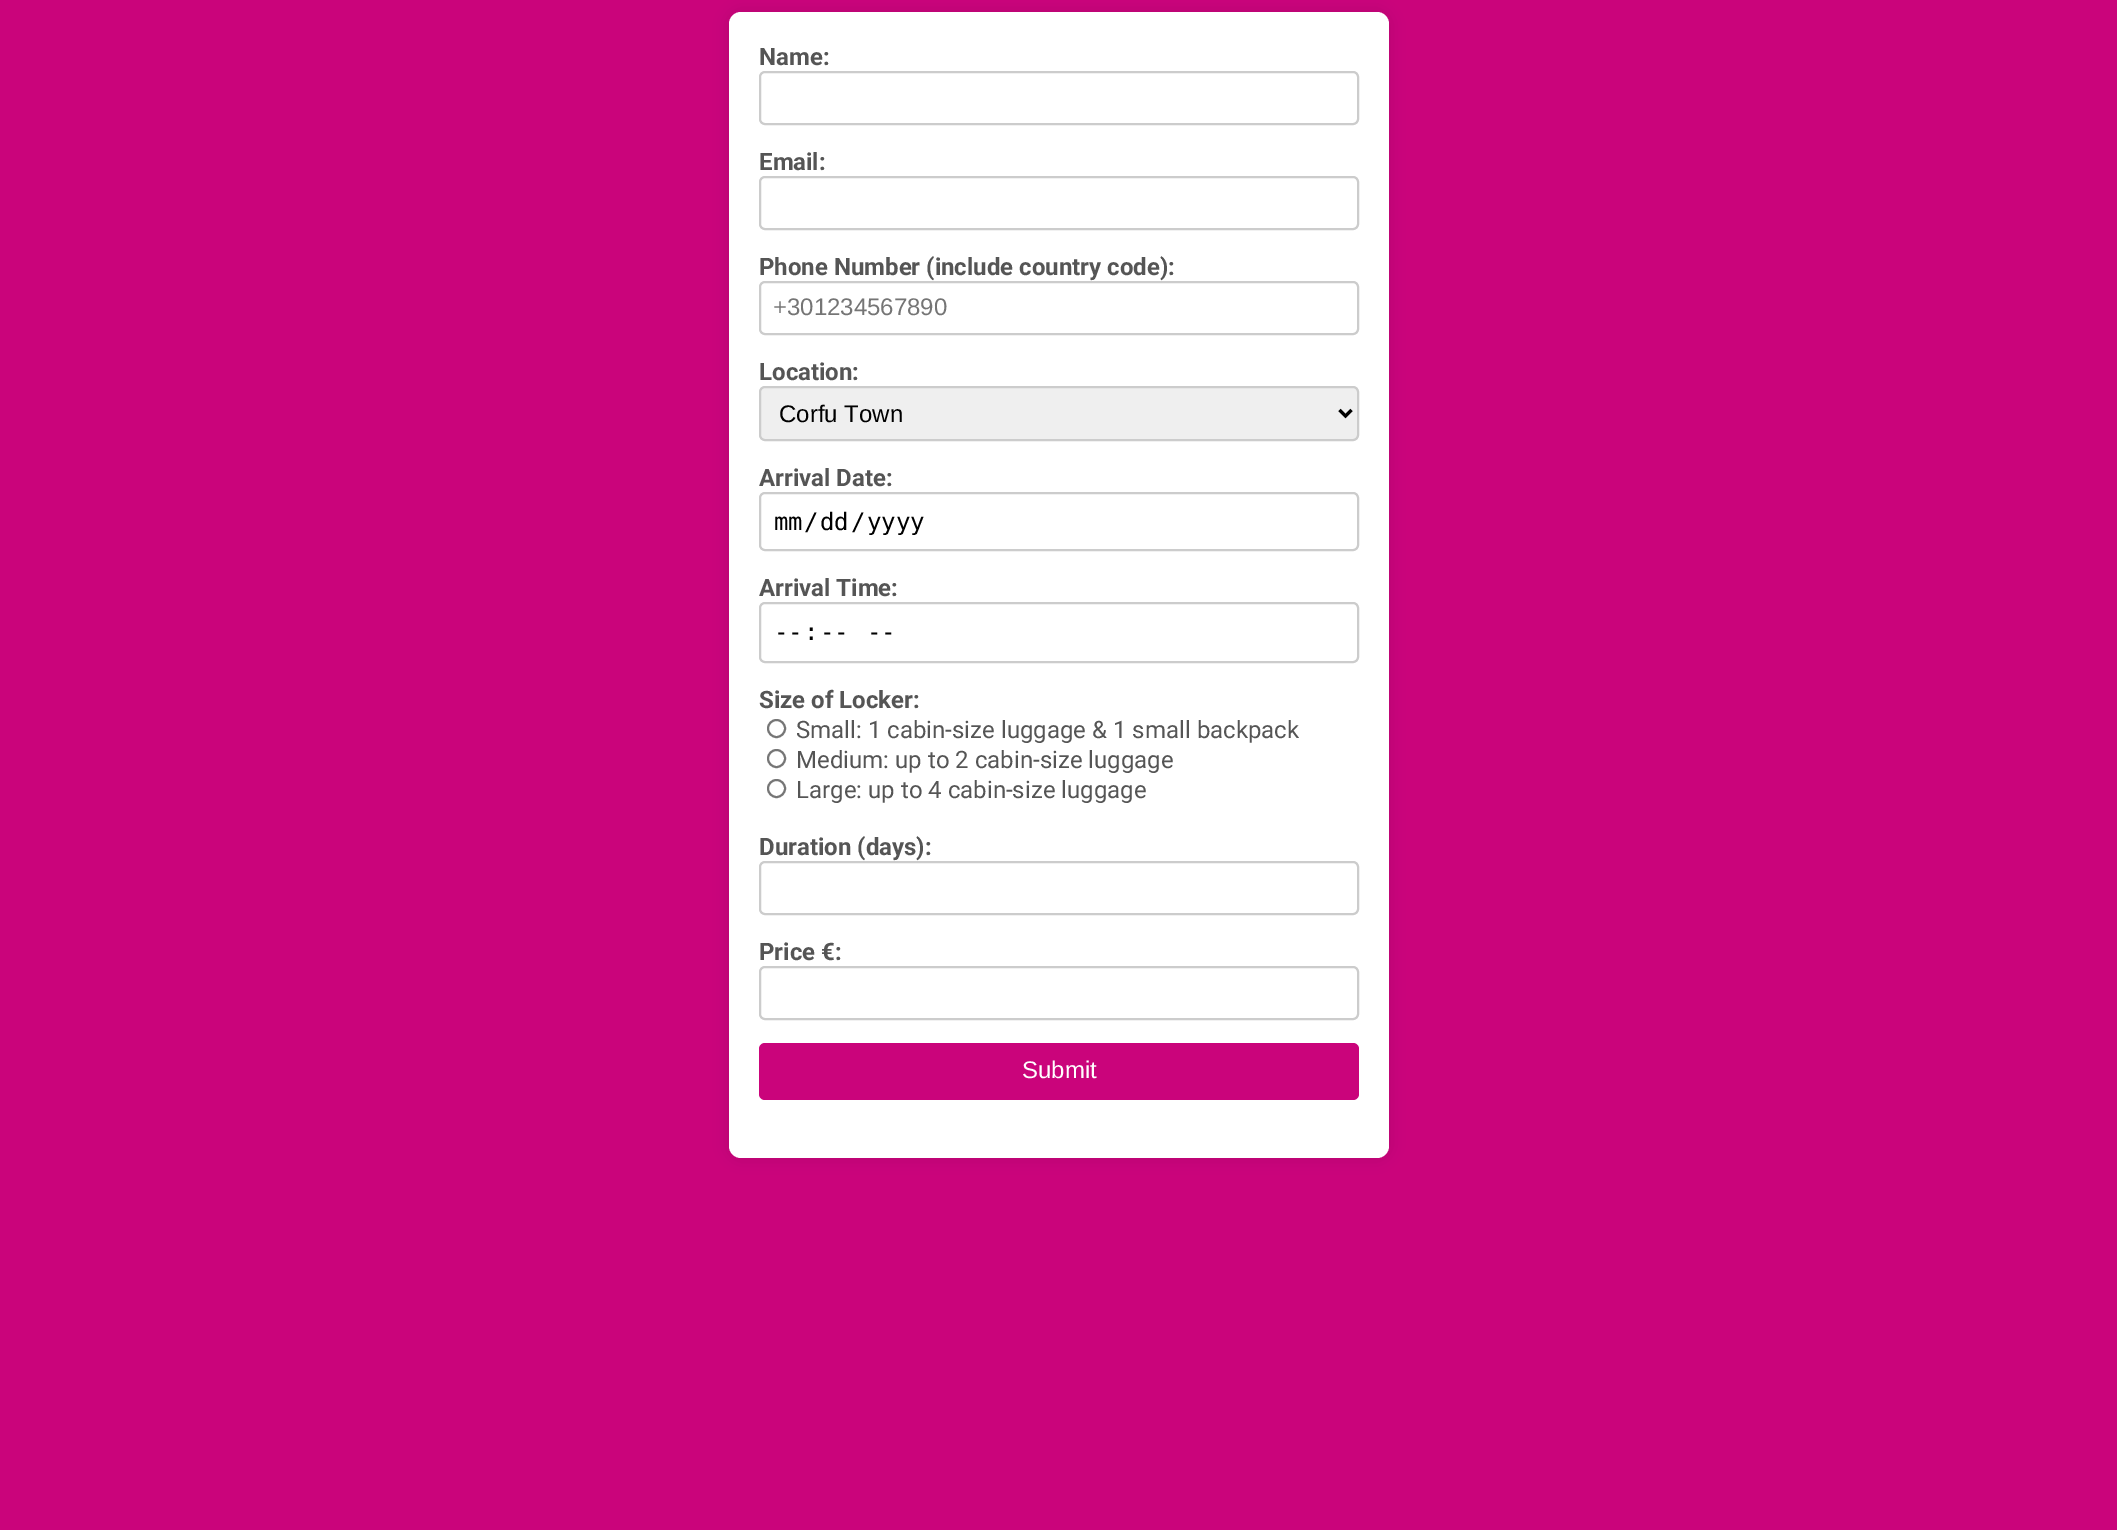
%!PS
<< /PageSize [2117 1530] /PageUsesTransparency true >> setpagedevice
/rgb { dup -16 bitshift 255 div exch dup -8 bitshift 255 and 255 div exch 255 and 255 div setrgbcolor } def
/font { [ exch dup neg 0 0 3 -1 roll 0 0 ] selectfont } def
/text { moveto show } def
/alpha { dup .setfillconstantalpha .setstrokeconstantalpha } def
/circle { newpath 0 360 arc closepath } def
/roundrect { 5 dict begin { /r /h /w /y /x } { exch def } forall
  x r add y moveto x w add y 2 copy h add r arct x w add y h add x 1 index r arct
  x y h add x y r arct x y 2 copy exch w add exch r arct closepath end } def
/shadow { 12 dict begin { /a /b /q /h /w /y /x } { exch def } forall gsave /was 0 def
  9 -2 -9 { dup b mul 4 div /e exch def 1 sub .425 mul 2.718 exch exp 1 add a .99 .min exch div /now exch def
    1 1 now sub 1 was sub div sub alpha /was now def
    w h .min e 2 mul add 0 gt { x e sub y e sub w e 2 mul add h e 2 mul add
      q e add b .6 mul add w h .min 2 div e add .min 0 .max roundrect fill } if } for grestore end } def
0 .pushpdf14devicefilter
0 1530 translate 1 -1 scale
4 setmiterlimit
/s1 { /Roboto-Bold 24 font 16#555555 rgb } def
/s2 { /LiberationSans-Regular 24 font 16#757575 rgb } def
/s3 { /LiberationSans-Regular 24 font 16#000000 rgb } def
/s4 { /DejaVuSansMono-Regular 24 font 16#000000 rgb } def
/s5 { /Roboto-Regular 24 font 16#555555 rgb } def
/s6 { /LiberationSans-Regular 24 font 16#FFFFFF rgb } def
16#CA047B rgb
0 0 2117 1530 rectfill
16#000000 rgb
729 12 660 1146 12 7.5 0.1 shadow
16#FFFFFF rgb
729 12 660 1146 12 roundrect fill
s1
(Name:) 759 65 text
16#CCCCCC rgb
2 setlinewidth
760 72 598 52 5 roundrect stroke
s1
(Email:) 759 170 text
16#CCCCCC rgb
760 177 598 52 5 roundrect stroke
s1
(Phone Number \(include country code\):) 759 275 text
16#CCCCCC rgb
760 282 598 52 5 roundrect stroke
s2
(+301234567890) 773 315 text
s1
(Location:) 759 380 text
16#EFEFEF rgb
760 387 598 53 5 roundrect gsave fill grestore
16#CCCCCC rgb
stroke
16#000000 rgb
3 setlinewidth
1339.5 410 moveto 1345.5 416 lineto 1351.5 410 lineto stroke
s3
(Corfu Town) 779 422 text
s1
(Arrival Date:) 759 486 text
16#CCCCCC rgb
2 setlinewidth
760 493 598 57 5 roundrect stroke
s4
(mm) 774 530 text
(/) 804 530 text
(dd) 820 530 text
(/) 851 530 text
(yyyy) 867 530 text
s1
(Arrival Time:) 759 596 text
16#CCCCCC rgb
760 603 598 59 5 roundrect stroke
s4
(--) 774 640 text
(:) 804 640 text
(--) 820 640 text
(--) 867 640 text
s1
(Size of Locker:) 759 708 text
16#767676 rgb
776.5 728.5 8.5 circle stroke
s5
(Small: 1 cabin-size luggage & 1 small backpack) 796 738 text
16#767676 rgb
776.5 758.5 8.5 circle stroke
s5
(Medium: up to 2 cabin-size luggage) 796 768 text
16#767676 rgb
776.5 788.5 8.5 circle stroke
s5
(Large: up to 4 cabin-size luggage) 796 798 text
s1
(Duration \(days\):) 759 855 text
16#CCCCCC rgb
760 862 598 52 5 roundrect stroke
s1
(Price €:) 759 960 text
16#CCCCCC rgb
760 967 598 52 5 roundrect stroke
16#CA047B rgb
759 1043 600 57 6 roundrect fill
s6
(Submit) 1022 1078 text
.poppdf14devicefilter showpage
